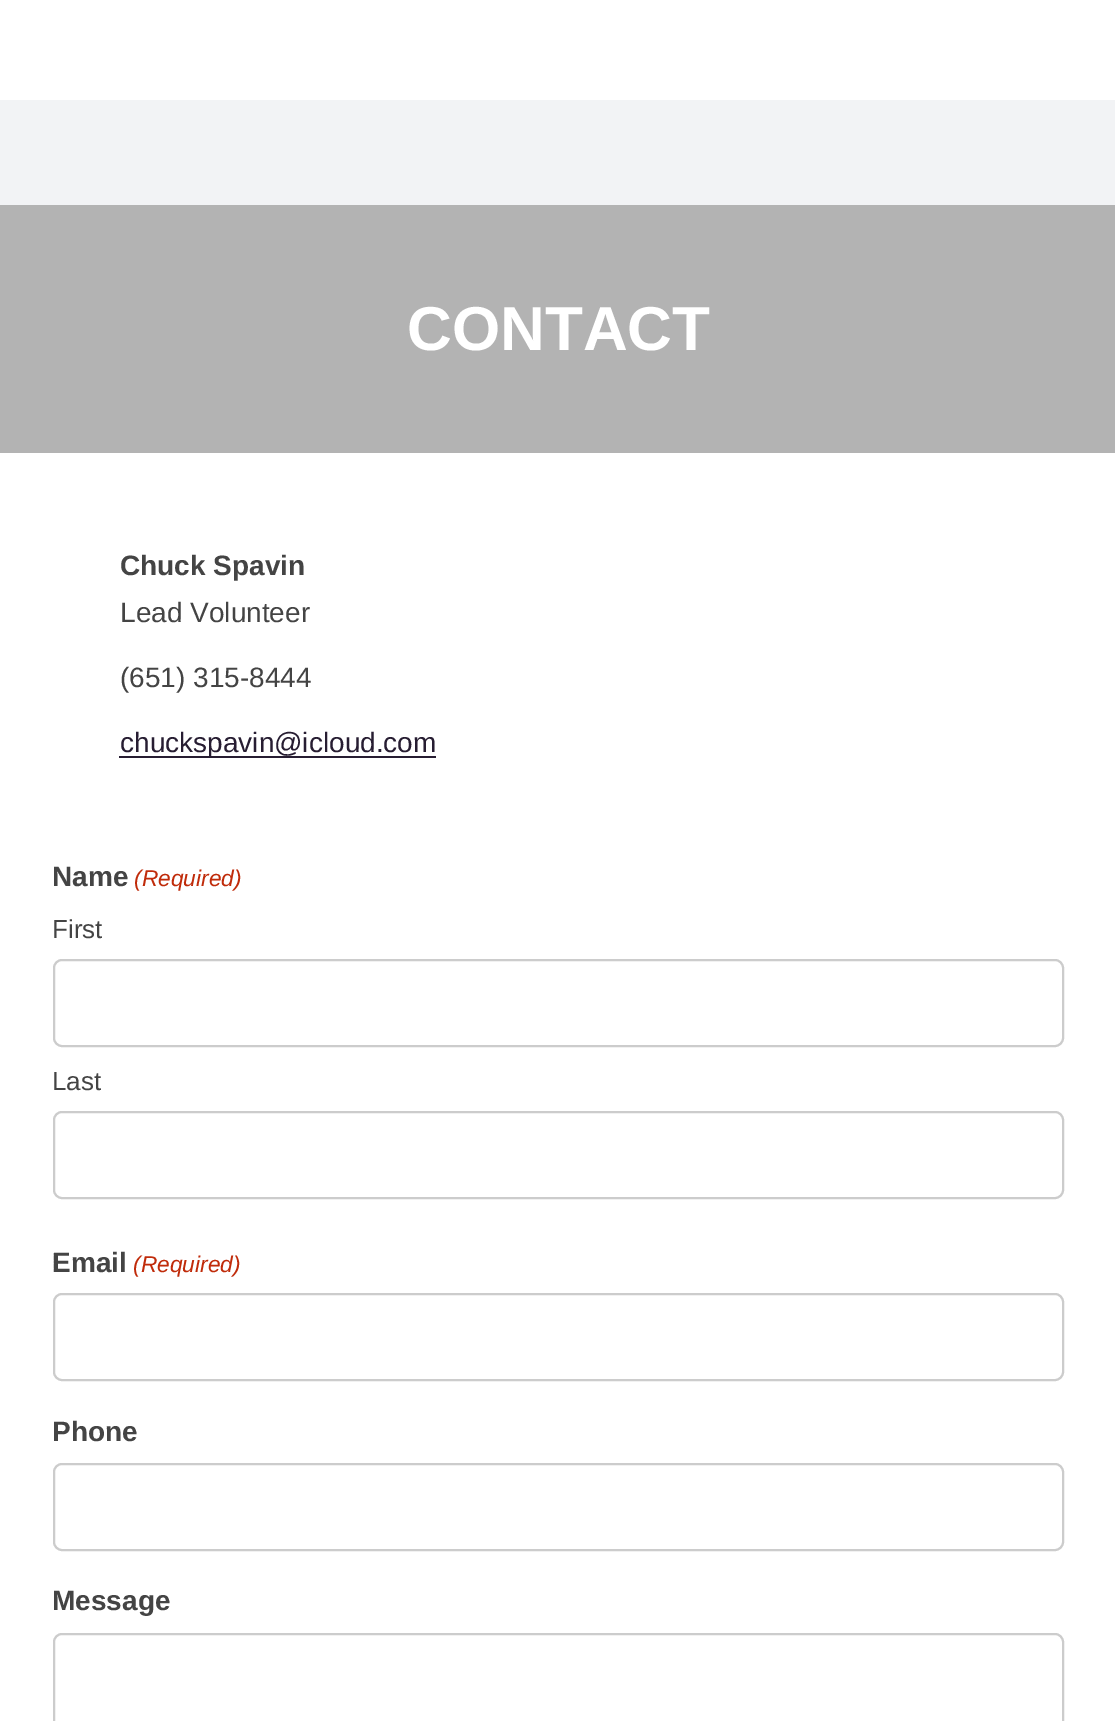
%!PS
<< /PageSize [1115 1721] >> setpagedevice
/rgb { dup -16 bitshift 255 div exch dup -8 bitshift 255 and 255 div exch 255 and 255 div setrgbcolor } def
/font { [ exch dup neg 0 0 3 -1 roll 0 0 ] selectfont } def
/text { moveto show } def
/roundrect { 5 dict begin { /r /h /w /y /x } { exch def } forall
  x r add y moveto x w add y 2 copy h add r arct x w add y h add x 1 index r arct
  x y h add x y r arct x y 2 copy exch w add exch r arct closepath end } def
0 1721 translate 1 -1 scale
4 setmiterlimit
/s1 { /LiberationSans-Bold 62 font 16#FFFFFF rgb } def
/s2 { /LiberationSans-Bold 28 font 16#444444 rgb } def
/s3 { /LiberationSans-Regular 28 font 16#444444 rgb } def
/s4 { /LiberationSans-Regular 28 font 16#271D32 rgb } def
/s5 { /LiberationSans-Italic 22.75 font 16#C02B0A rgb } def
/s6 { /LiberationSans-Regular 26 font 16#444444 rgb } def
16#FFFFFF rgb
0 0 1115 1721 rectfill
16#F2F3F5 rgb
0 100 1115 105 rectfill
16#B3B3B3 rgb
0 205 1115 248 rectfill
s1
(CONTACT) 407 350 text
s2
(Chuck Spavin) 120 575 text
s3
(Lead Volunteer) 120 622 text
(\(651\) 315-8444) 120 687 text
16#271D32 rgb
119 756 317 2 rectfill
(chuckspavin@icloud.com) 120 752 text
s2
(Name) 52 886 text
s5
(\(Required\)) 134 886 text
s6
(First) 52 938 text
16#CCCCCC rgb
2 setlinewidth
54 960 1009 86 8 roundrect stroke
s6
(Last) 52 1090 text
16#CCCCCC rgb
54 1112 1009 86 8 roundrect stroke
s2
(Email) 52 1272 text
s5
(\(Required\)) 133 1272 text
16#CCCCCC rgb
54 1294 1009 86 8 roundrect stroke
s2
(Phone) 52 1441 text
16#CCCCCC rgb
54 1464 1009 86 8 roundrect stroke
s2
(Message) 52 1610 text
16#CCCCCC rgb
54 1634 1009 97 8 roundrect stroke
showpage
